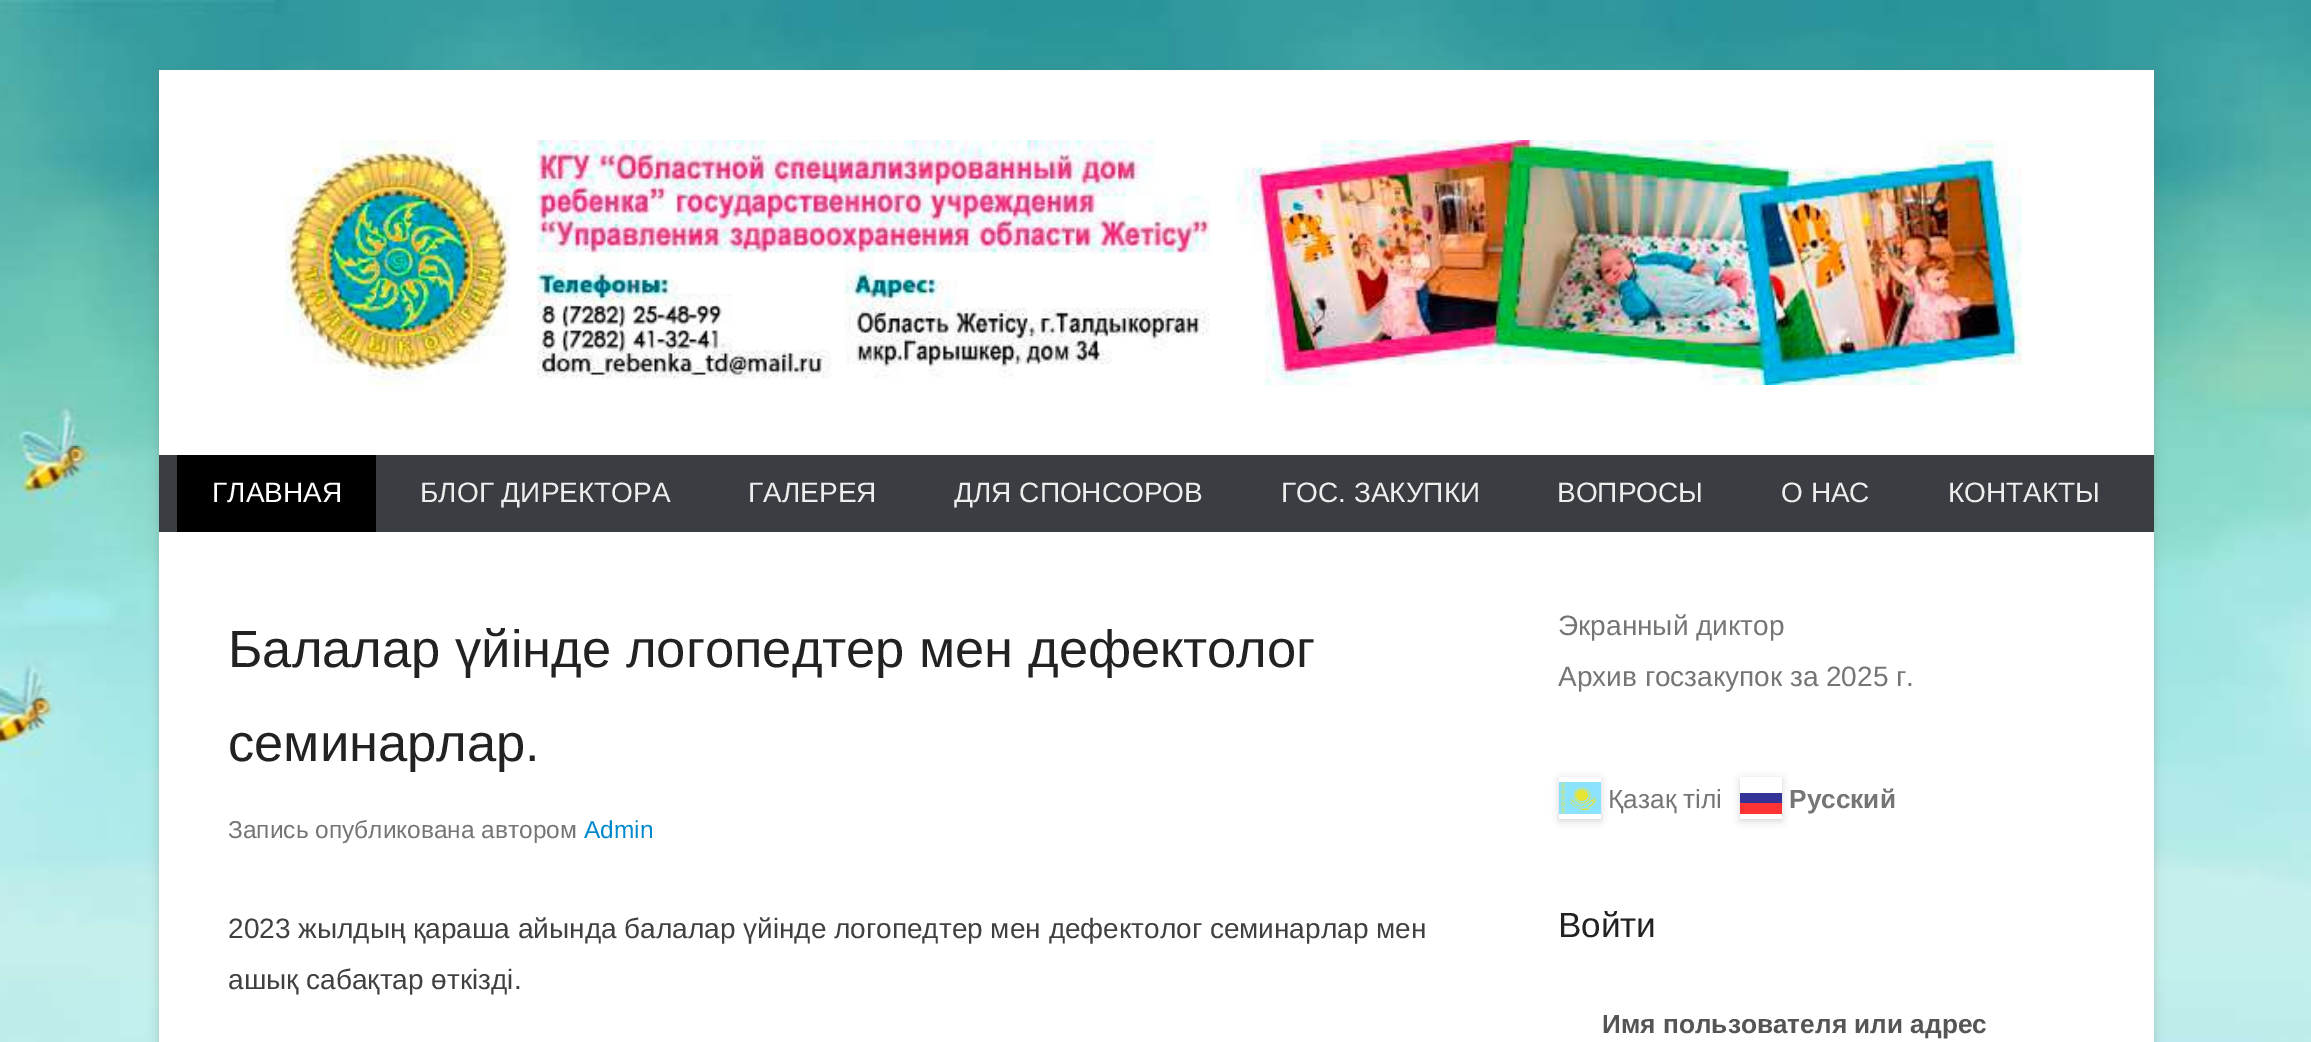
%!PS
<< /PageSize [2311 1042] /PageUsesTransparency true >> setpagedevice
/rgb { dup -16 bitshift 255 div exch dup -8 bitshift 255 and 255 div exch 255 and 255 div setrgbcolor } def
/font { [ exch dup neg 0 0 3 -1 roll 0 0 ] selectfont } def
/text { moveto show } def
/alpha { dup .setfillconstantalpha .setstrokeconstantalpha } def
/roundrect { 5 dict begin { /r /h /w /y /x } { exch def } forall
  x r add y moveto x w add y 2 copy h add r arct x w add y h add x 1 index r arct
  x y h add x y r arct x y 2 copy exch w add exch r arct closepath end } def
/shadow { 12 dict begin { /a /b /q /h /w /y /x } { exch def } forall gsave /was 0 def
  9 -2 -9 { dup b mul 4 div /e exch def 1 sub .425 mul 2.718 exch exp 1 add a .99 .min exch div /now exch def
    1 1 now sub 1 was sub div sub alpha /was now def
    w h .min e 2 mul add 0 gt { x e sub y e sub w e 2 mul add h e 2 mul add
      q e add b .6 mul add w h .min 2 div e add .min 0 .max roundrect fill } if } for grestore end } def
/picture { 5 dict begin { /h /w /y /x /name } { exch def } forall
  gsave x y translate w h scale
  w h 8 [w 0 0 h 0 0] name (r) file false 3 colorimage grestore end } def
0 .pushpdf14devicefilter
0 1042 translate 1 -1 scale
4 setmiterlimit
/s1 { /LiberationSans-Regular 28 font 16#FFFFFF rgb } def
/s2 { /LiberationSans-Regular 28 font 16#EEEEEE rgb } def
/s3 { /LiberationSans-Regular 52.5 font 16#222222 rgb } def
/s4 { /LiberationSans-Regular 24.5 font 16#757575 rgb } def
/s5 { /LiberationSans-Regular 24.5 font 16#0088CC rgb } def
/s6 { /LiberationSans-Regular 28 font 16#404040 rgb } def
/s7 { /LiberationSans-Regular 28 font 16#757575 rgb } def
/s8 { /LiberationSans-Regular 26.25 font 16#757575 rgb } def
/s9 { /LiberationSans-Bold 26.25 font 16#757575 rgb } def
/s10 { /LiberationSans-Regular 35 font 16#222222 rgb } def
/s11 { /LiberationSans-Bold 26.25 font 16#555555 rgb } def
16#FFFFFF rgb
0 0 2311 1042 rectfill
(pic1.raw) 0 0 2311 1042 picture
16#646464 rgb
159 74 1995 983 0 5 0.3 shadow
16#FFFFFF rgb
159 70 1995 972 rectfill
(pic2.raw) 284 140 1739 245 picture
16#3A3D41 rgb
159 455 1995 77 rectfill
16#000000 rgb
177 455 199 77 rectfill
s1
(ГЛАВНАЯ) 212 502 text
s2
(БЛОГ ДИРЕКТОРА) 420 502 text
(ГАЛЕРЕЯ) 748 502 text
(ДЛЯ СПОНСОРОВ) 954 502 text
(ГОС. ЗАКУПКИ) 1281 502 text
(ВОПРОСЫ) 1557 502 text
(О НАС) 1781 502 text
(КОНТАКТЫ) 1948 502 text
s3
(Балалар үйінде логопедтер мен дефектолог) 228 667 text
(семинарлар.) 228 761 text
s4
(Запись опубликована автором) 228 838 text
s5
(Admin) 584 838 text
s6
(2023 жылдың қараша айында балалар үйінде логопедтер мен дефектолог семинарлар мен) 228 938 text
(ашық сабақтар өткізді.) 228 989 text
s7
(Экранный диктор) 1558 635 text
(Архив госзакупок за 2025 г.) 1558 686 text
gsave
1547 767 moveto 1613 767 lineto 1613 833 lineto 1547 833 lineto closepath 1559 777 moveto 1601 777 lineto 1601 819 lineto 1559 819 lineto closepath eoclip newpath
16#333333 rgb
1559 779 42 42 0 3.5 0.2 shadow
grestore
(pic3.raw) 1559 782 42 32 picture
s8
(Қазақ тілі) 1608 808 text
s9
(Русский) 1789 808 text
gsave
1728 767 moveto 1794 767 lineto 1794 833 lineto 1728 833 lineto closepath 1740 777 moveto 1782 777 lineto 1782 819 lineto 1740 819 lineto closepath eoclip newpath
16#333333 rgb
1740 779 42 42 0 3.5 0.2 shadow
grestore
16#FFFFFF rgb
1781 782 1 11 rectfill
16#343498 rgb
1740 793 42 10 rectfill
16#FE3434 rgb
1740 803 42 11 rectfill
s10
(Войти) 1558 937 text
s11
(Имя пользователя или адрес) 1602 1033 text
.poppdf14devicefilter showpage
